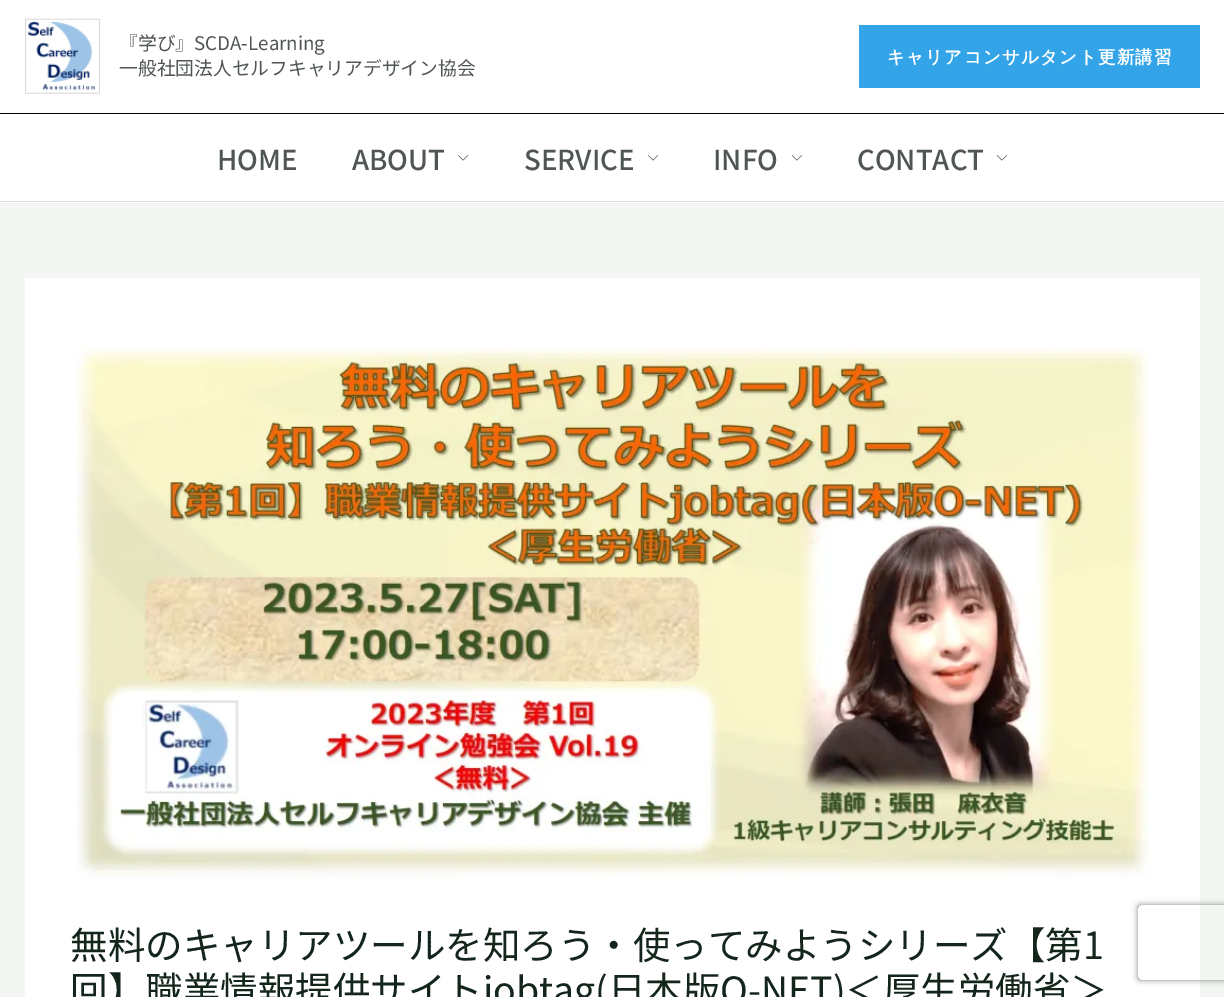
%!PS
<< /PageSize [1224 997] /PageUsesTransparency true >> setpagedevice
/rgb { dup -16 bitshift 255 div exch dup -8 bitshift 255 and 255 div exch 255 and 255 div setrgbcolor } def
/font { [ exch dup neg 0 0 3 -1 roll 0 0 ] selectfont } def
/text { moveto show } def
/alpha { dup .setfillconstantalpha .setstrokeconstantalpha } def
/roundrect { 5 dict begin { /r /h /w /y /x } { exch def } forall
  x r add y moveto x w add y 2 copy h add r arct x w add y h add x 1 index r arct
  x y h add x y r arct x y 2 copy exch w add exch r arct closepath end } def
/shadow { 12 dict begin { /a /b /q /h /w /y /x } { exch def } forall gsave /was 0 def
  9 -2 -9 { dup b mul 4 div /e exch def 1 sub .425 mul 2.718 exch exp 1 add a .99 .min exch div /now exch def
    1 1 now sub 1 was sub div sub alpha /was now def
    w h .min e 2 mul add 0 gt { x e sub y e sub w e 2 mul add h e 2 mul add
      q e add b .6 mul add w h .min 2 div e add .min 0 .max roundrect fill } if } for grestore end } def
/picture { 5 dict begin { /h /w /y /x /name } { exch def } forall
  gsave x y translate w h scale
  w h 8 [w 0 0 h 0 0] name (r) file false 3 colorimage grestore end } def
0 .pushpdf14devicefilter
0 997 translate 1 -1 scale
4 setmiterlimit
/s1 { /NotoSansJP-Regular 18.75 font 16#4F5655 rgb } def
/s2 { /NotoSansJP-Medium 27.5 font 16#4F5655 rgb } def
/s3 { /NotoSansJP-Regular 37.5 font 16#14261C rgb } def
16#F3F6F3 rgb
0 0 1224 997 rectfill
16#FFFFFF rgb
0 0 1224 113 rectfill
16#000000 rgb
0 113 1224 1 rectfill
(pic1.raw) 25 18 75 76 picture
s1
(『学び』SCDA-Learning) 119 50 text
(一般社団法人セルフキャリアデザイン協会) 119 75 text
16#33A4E8 rgb
859 25 341 63 rectfill
/WenQuanYiZenHei-Bold 17.5 font
16#FFFFFF rgb
887 63 moveto 1.25 0 (キャリアコンサルタント更新講習) ashow
0 114 1224 89 rectfill
16#DDDDDD rgb
0 201 1224 1 rectfill
s2
(HOME) 217 170 text
(ABOUT) 352 170 text
(pic2.raw) 458 155 11 6 picture
(SERVICE) 524 170 text
(pic2.raw) 648 155 11 6 picture
(INFO) 713 170 text
(pic3.raw) 791 155 11 6 picture
(CONTACT) 857 170 text
(pic3.raw) 996 155 11 6 picture
16#FFFFFF rgb
25 278 1175 719 rectfill
(pic4.raw) 76 346 1073 533 picture
s3
(無料のキャリアツールを知ろう・使ってみようシリーズ【第1) 70 959 text
(回】職業情報提供サイトjobtag\(日本版O-NET\)＜厚生労働省＞) 70 1004 text
gsave
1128 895 moveto 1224 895 lineto 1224 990 lineto 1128 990 lineto closepath 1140.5 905 moveto 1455.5 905 lineto 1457 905 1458 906 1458 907.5 curveto 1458 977.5 lineto 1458 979 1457 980 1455.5 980 curveto 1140.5 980 lineto 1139 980 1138 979 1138 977.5 curveto 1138 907.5 lineto 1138 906 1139 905 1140.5 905 curveto closepath eoclip newpath
16#808080 rgb
1138 905 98 75 2.5 3 1 shadow
grestore
.poppdf14devicefilter showpage
